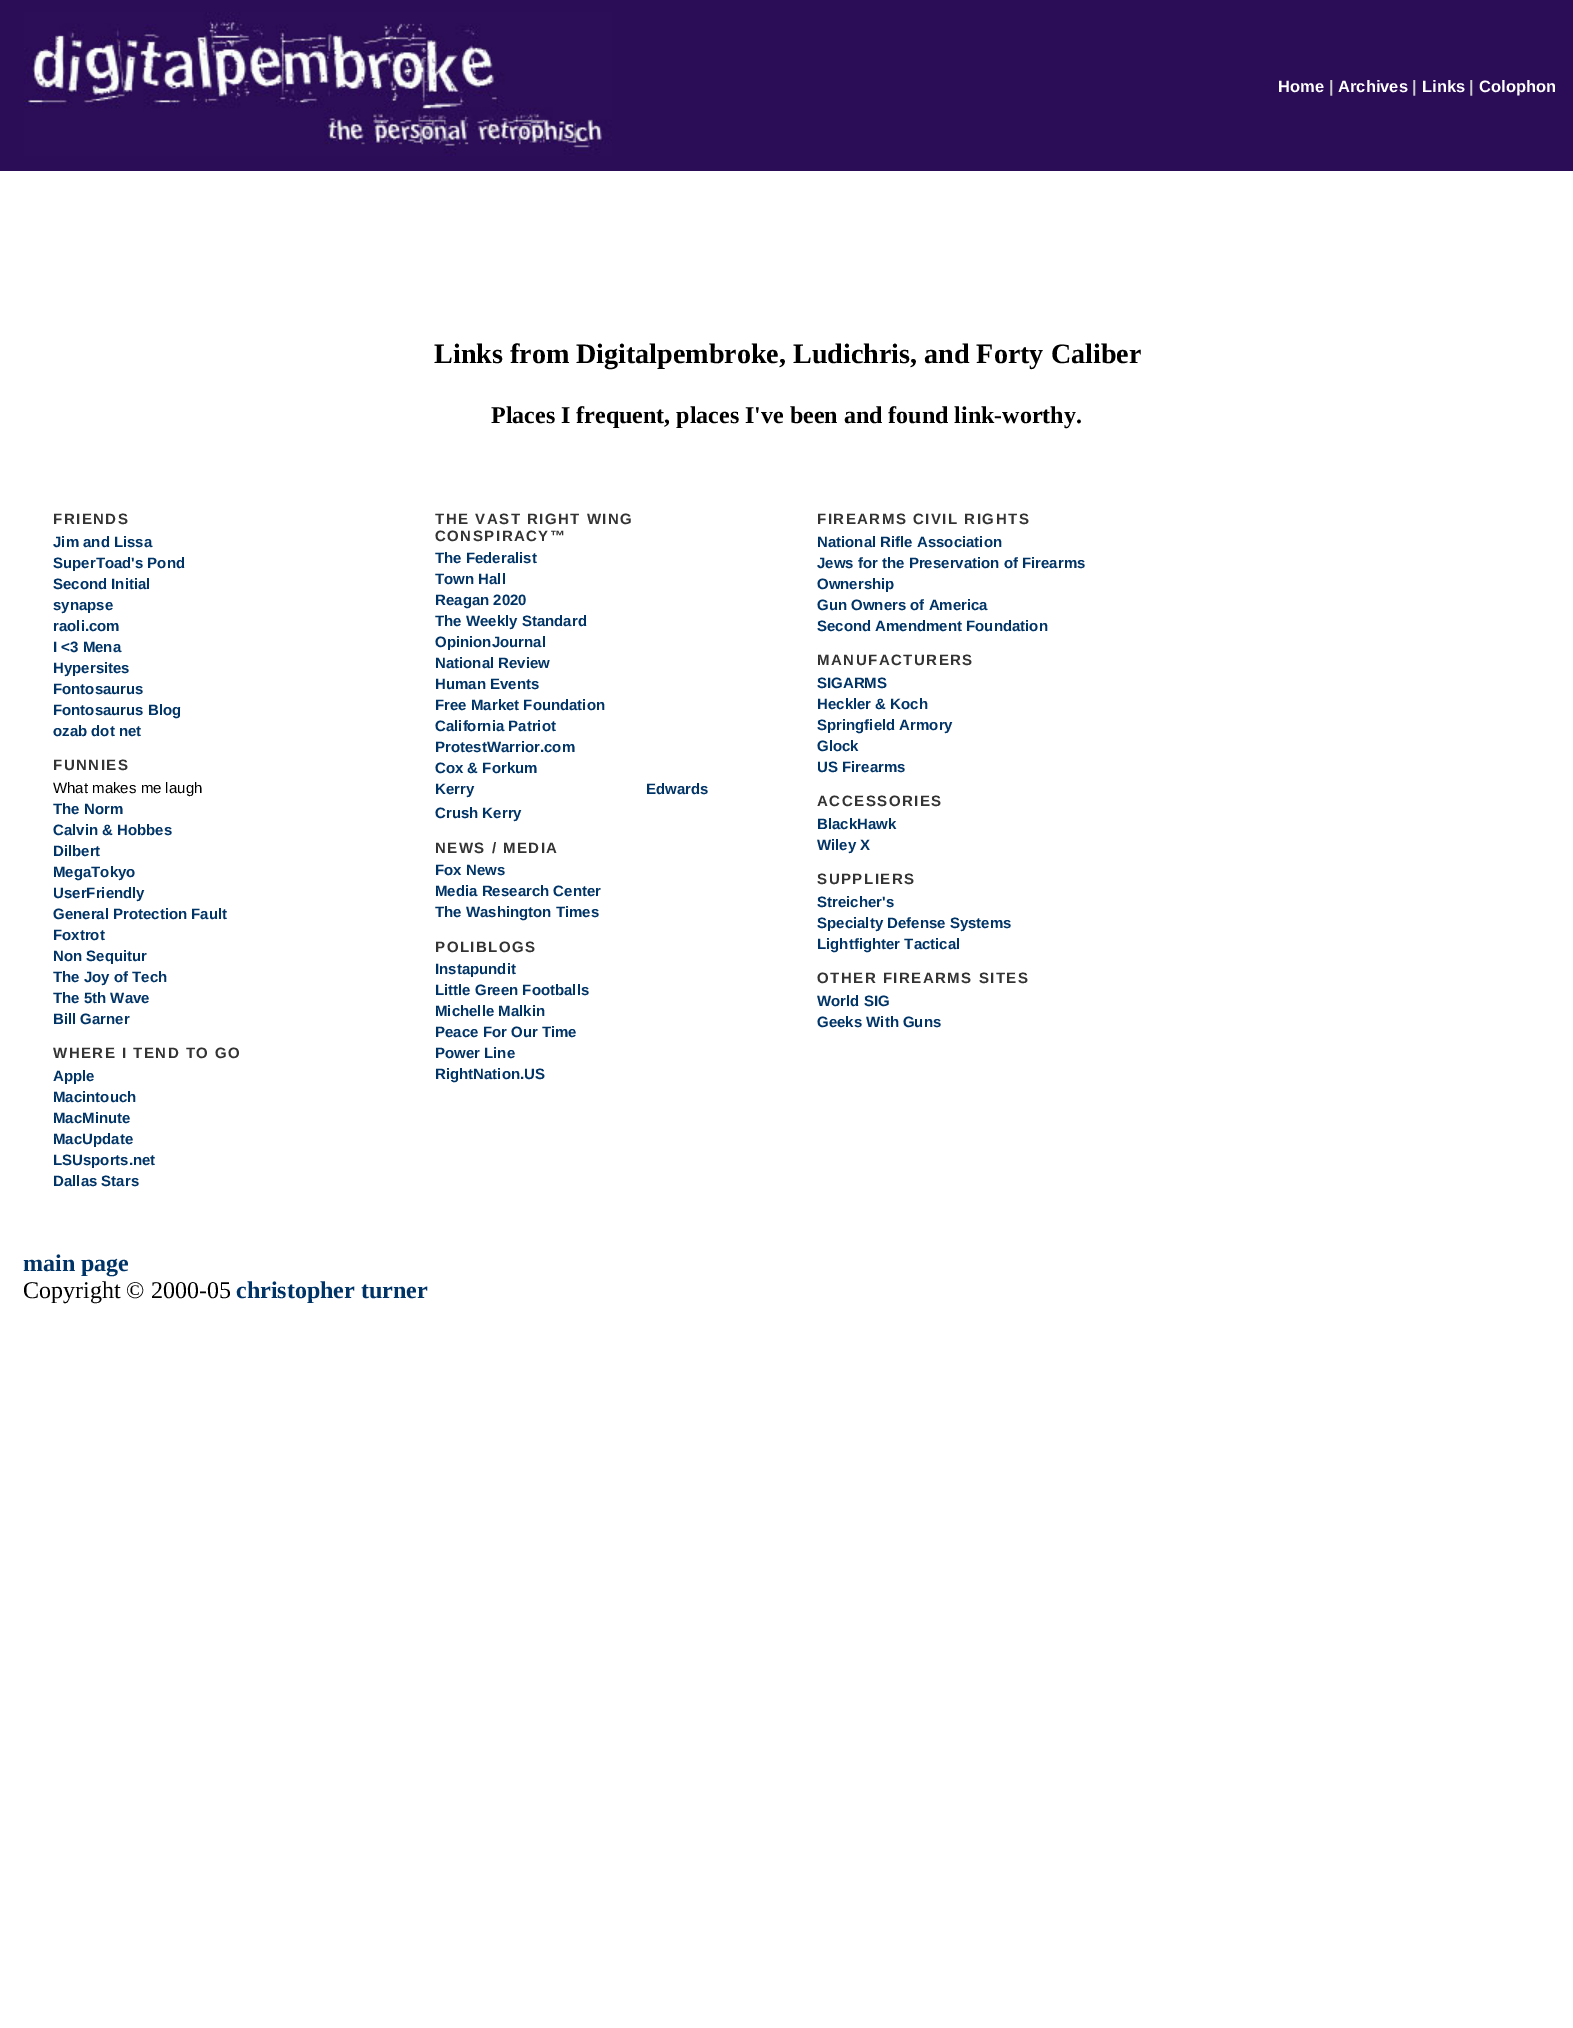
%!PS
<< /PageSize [1573 2028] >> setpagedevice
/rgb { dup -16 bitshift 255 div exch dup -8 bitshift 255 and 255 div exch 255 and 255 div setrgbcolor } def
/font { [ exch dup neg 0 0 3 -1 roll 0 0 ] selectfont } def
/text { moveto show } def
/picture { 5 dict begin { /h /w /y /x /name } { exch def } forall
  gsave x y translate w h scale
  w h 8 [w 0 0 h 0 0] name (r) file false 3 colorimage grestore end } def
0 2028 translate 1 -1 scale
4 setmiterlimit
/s1 { /LiberationSans-Bold 16.5 font 16#FFFFFF rgb } def
/s2 { /LiberationSans-Bold 16.5 font 16#CCCCCC rgb } def
/s3 { /LiberationSerif-Bold 28.1 font 16#000000 rgb } def
/s4 { /LiberationSerif-Bold 24 font 16#000000 rgb } def
/s5 { /LiberationSans-Bold 15 font 16#003366 rgb } def
/s6 { /LiberationSans-Regular 15 font 16#000000 rgb } def
/s7 { /LiberationSerif-Bold 24 font 16#003366 rgb } def
/s8 { /LiberationSerif-Regular 24 font 16#000000 rgb } def
16#FFFFFF rgb
0 0 1573 2028 rectfill
16#2B0D57 rgb
0 0 1573 171 rectfill
(pic1.raw) 24 12 588 144 picture
s1
(Home) 1278 92 text
s2
(|) 1329 92 text
s1
(Archives) 1338 92 text
s2
(|) 1412 92 text
s1
(Links) 1422 92 text
s2
(|) 1469 92 text
s1
(Colophon) 1479 92 text
s3
(Links from Digitalpembroke, Ludichris, and Forty Caliber) 434 363 text
s4
(Places I frequent, places I've been and found link-worthy.) 491 423 text
/LiberationSans-Bold 15 font
16#333333 rgb
53 524 moveto 1.5 0 (FRIENDS) ashow
s5
(Jim and Lissa) 53 547 text
(SuperToad's Pond) 53 568 text
(Second Initial) 53 589 text
(synapse) 53 610 text
(raoli.com) 53 631 text
(I <3 Mena) 53 652 text
(Hypersites) 53 673 text
(Fontosaurus) 53 694 text
(Fontosaurus Blog) 53 715 text
(ozab dot net) 53 736 text
16#333333 rgb
53 770 moveto 1.5 0 (FUNNIES) ashow
s6
(What makes me laugh) 53 793 text
s5
(The Norm) 53 814 text
(Calvin & Hobbes) 53 835 text
(Dilbert) 53 856 text
(MegaTokyo) 53 877 text
(UserFriendly) 53 898 text
(General Protection Fault) 53 919 text
(Foxtrot) 53 940 text
(Non Sequitur) 53 961 text
(The Joy of Tech) 53 982 text
(The 5th Wave) 53 1003 text
(Bill Garner) 53 1024 text
16#333333 rgb
53 1058 moveto 1.5 0 (WHERE I TEND TO GO) ashow
s5
(Apple) 53 1081 text
(Macintouch) 53 1102 text
(MacMinute) 53 1123 text
(MacUpdate) 53 1144 text
(LSUsports.net) 53 1165 text
(Dallas Stars) 53 1186 text
16#333333 rgb
435 524 moveto 1.5 0 (THE VAST RIGHT WING) ashow
435 541 moveto 1.5 0 (CONSPIRACY™) ashow
s5
(The Federalist) 435 563 text
(Town Hall) 435 584 text
(Reagan 2020) 435 605 text
(The Weekly Standard) 435 626 text
(OpinionJournal) 435 647 text
(National Review) 435 668 text
(Human Events) 435 689 text
(Free Market Foundation) 435 710 text
(California Patriot) 435 731 text
(ProtestWarrior.com) 435 752 text
(Cox & Forkum) 435 773 text
(Kerry) 435 794 text
(Edwards) 646 794 text
(Crush Kerry) 435 818 text
16#333333 rgb
435 853 moveto 1.5 0 (NEWS / MEDIA) ashow
s5
(Fox News) 435 875 text
(Media Research Center) 435 896 text
(The Washington Times) 435 917 text
16#333333 rgb
435 952 moveto 1.5 0 (POLIBLOGS) ashow
s5
(Instapundit) 435 974 text
(Little Green Footballs) 435 995 text
(Michelle Malkin) 435 1016 text
(Peace For Our Time) 435 1037 text
(Power Line) 435 1058 text
(RightNation.US) 435 1079 text
16#333333 rgb
817 524 moveto 1.5 0 (FIREARMS CIVIL RIGHTS) ashow
s5
(National Rifle Association) 817 547 text
(Jews for the Preservation of Firearms) 817 568 text
(Ownership) 817 589 text
(Gun Owners of America) 817 610 text
(Second Amendment Foundation) 817 631 text
16#333333 rgb
817 665 moveto 1.5 0 (MANUFACTURERS) ashow
s5
(SIGARMS) 817 688 text
(Heckler & Koch) 817 709 text
(Springfield Armory) 817 730 text
(Glock) 817 751 text
(US Firearms) 817 772 text
16#333333 rgb
817 806 moveto 1.5 0 (ACCESSORIES) ashow
s5
(BlackHawk) 817 829 text
(Wiley X) 817 850 text
16#333333 rgb
817 884 moveto 1.5 0 (SUPPLIERS) ashow
s5
(Streicher's) 817 907 text
(Specialty Defense Systems) 817 928 text
(Lightfighter Tactical) 817 949 text
16#333333 rgb
817 983 moveto 1.5 0 (OTHER FIREARMS SITES) ashow
s5
(World SIG) 817 1006 text
(Geeks With Guns) 817 1027 text
s7
(main page) 23 1271 text
s8
(Copyright © 2000-05) 23 1298 text
s7
(christopher turner) 236 1298 text
showpage
